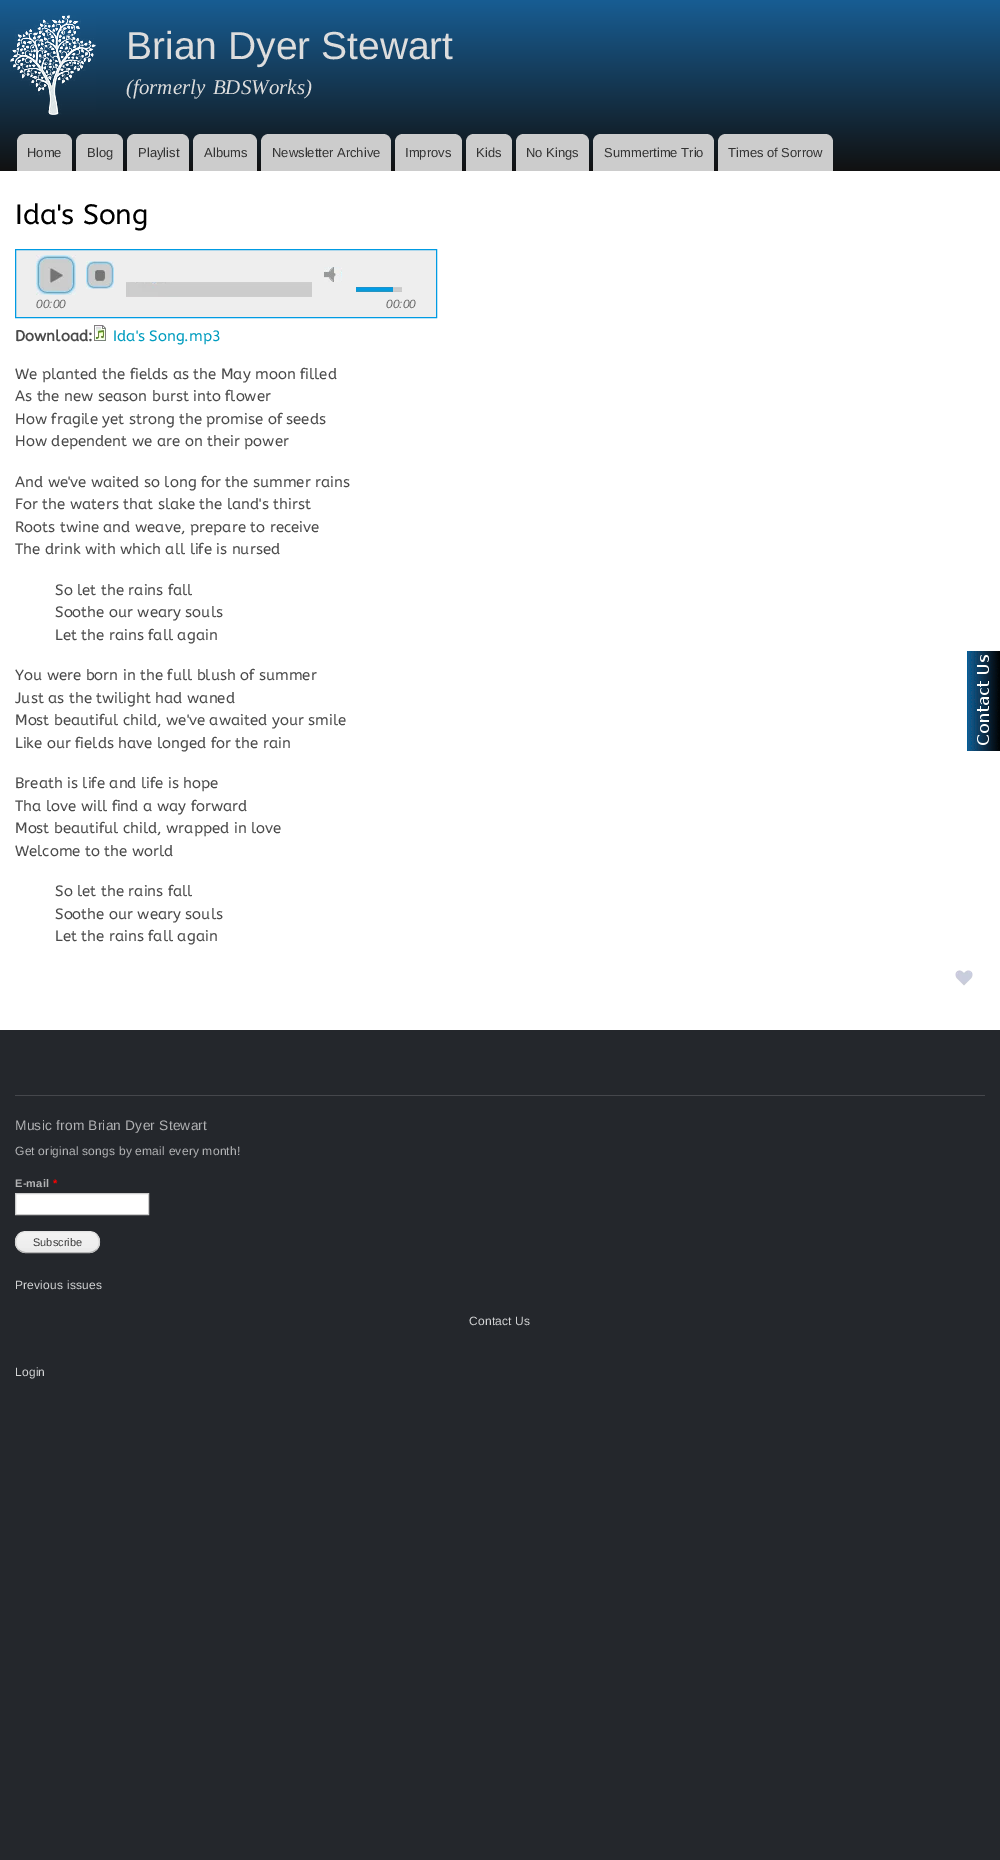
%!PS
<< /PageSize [1000 1860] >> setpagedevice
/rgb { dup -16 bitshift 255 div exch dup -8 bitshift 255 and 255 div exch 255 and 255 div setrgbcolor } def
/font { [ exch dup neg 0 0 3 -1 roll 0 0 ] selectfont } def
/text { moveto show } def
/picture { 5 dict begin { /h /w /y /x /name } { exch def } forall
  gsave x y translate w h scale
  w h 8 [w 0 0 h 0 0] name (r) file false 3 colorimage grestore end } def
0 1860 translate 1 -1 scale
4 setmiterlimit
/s1 { /LiberationSans-Regular 39 font 16#DDDDDD rgb } def
/s2 { /LiberationSans-Regular 13 font 16#333333 rgb } def
/s3 { /ABeeZee-Regular 28 font 16#000000 rgb } def
/s4 { /LiberationSans-Italic 12 font 16#666666 rgb } def
/s5 { /ABeeZee-Bold 15 font 16#4A4A4A rgb } def
/s6 { /ABeeZee-Regular 15 font 16#009CBF rgb } def
/s7 { /ABeeZee-Regular 15 font 16#4A4A4A rgb } def
/s8 { /LiberationSans-Regular 11 font 16#3A3A3A rgb } def
16#24272C rgb
0 0 1000 1860 rectfill
16#FFFFFF rgb
0 171 1000 859 rectfill
gsave 0 0 moveto 1000 0 lineto 1000 171 lineto 0 171 lineto closepath clip newpath
<< /ShadingType 2 /ColorSpace /DeviceRGB /Coords [500 0 500 171] /Extend [true true] /Function << /FunctionType 2 /Domain [0 1] /C0 [0.094 0.365 0.576] /C1 [0.067 0.067 0.067] /N 1 >> >> shfill grestore
(pic1.raw) 10 15 86 100 picture
s1
(Brian Dyer Stewart) 126 59 text
/LiberationSerif-Italic 21 font
126 94 moveto 2 0 32 (\(formerly BDSWorks\)) widthshow
16#CCCCCC rgb
25 134 moveto 64 134 lineto 68.5 134 72 137.5 72 142 curveto 72 171 lineto 17 171 lineto 17 142 lineto 17 137.5 20.5 134 25 134 curveto closepath fill
s2
(Home) 27 157 text
16#CCCCCC rgb
84 134 moveto 115 134 lineto 119.5 134 123 137.5 123 142 curveto 123 171 lineto 76 171 lineto 76 142 lineto 76 137.5 79.5 134 84 134 curveto closepath fill
s2
(Blog) 87 157 text
16#CCCCCC rgb
135 134 moveto 181 134 lineto 185.5 134 189 137.5 189 142 curveto 189 171 lineto 127 171 lineto 127 142 lineto 127 137.5 130.5 134 135 134 curveto closepath fill
s2
(Playlist) 138 157 text
16#CCCCCC rgb
201 134 moveto 249 134 lineto 253.5 134 257 137.5 257 142 curveto 257 171 lineto 193 171 lineto 193 142 lineto 193 137.5 196.5 134 201 134 curveto closepath fill
s2
(Albums) 204 157 text
16#CCCCCC rgb
269 134 moveto 383 134 lineto 387.5 134 391 137.5 391 142 curveto 391 171 lineto 261 171 lineto 261 142 lineto 261 137.5 264.5 134 269 134 curveto closepath fill
s2
(Newsletter Archive) 272 157 text
16#CCCCCC rgb
403 134 moveto 454 134 lineto 458.5 134 462 137.5 462 142 curveto 462 171 lineto 395 171 lineto 395 142 lineto 395 137.5 398.5 134 403 134 curveto closepath fill
s2
(Improvs) 405 157 text
16#CCCCCC rgb
474 134 moveto 504 134 lineto 508.5 134 512 137.5 512 142 curveto 512 171 lineto 466 171 lineto 466 142 lineto 466 137.5 469.5 134 474 134 curveto closepath fill
s2
(Kids) 476 157 text
16#CCCCCC rgb
524 134 moveto 581 134 lineto 585.5 134 589 137.5 589 142 curveto 589 171 lineto 516 171 lineto 516 142 lineto 516 137.5 519.5 134 524 134 curveto closepath fill
s2
(No Kings) 526 157 text
16#CCCCCC rgb
601 134 moveto 706 134 lineto 710.5 134 714 137.5 714 142 curveto 714 171 lineto 593 171 lineto 593 142 lineto 593 137.5 596.5 134 601 134 curveto closepath fill
s2
(Summertime Trio) 604 157 text
16#CCCCCC rgb
726 134 moveto 825 134 lineto 829.5 134 833 137.5 833 142 curveto 833 171 lineto 718 171 lineto 718 142 lineto 718 137.5 721.5 134 726 134 curveto closepath fill
s2
(Times of Sorrow) 728 157 text
s3
(Ida's Song) 15 224 text
16#EEEEEE rgb
15.5 249.5 moveto 436.5 249.5 lineto 436.5 317.5 lineto 15.5 317.5 lineto closepath gsave fill grestore
16#009BE3 rgb
stroke
(pic2.raw) 36 255 40 40 picture
(pic3.raw) 86 261 28 28 picture
(pic4.raw) 324 267 18 15 picture
(pic5.raw) 126 282 186 15 picture
(pic6.raw) 393 287 9 5 picture
(pic7.raw) 356 287 37 5 picture
s4
(00:00) 36 308 text
(00:00) 386 308 text
s5
(Download:) 15 341 text
(pic8.raw) 94 325 12 16 picture
s6
(Ida's Song.mp3) 113 341 text
s7
(We planted the fields as the May moon filled) 15 379 text
(As the new season burst into flower) 15 401 text
(How fragile yet strong the promise of seeds) 15 424 text
(How dependent we are on their power) 15 446 text
(And we've waited so long for the summer rains) 15 487 text
(For the waters that slake the land's thirst) 15 509 text
(Roots twine and weave, prepare to receive) 15 532 text
(The drink with which all life is nursed) 15 554 text
(So let the rains fall) 55 595 text
(Soothe our weary souls) 55 617 text
(Let the rains fall again) 55 640 text
(You were born in the full blush of summer) 15 680 text
(Just as the twilight had waned) 15 703 text
(Most beautiful child, we've awaited your smile) 15 725 text
(Like our fields have longed for the rain) 15 748 text
(Breath is life and life is hope) 15 788 text
(Tha love will find a way forward) 15 811 text
(Most beautiful child, wrapped in love) 15 833 text
(Welcome to the world) 15 856 text
(So let the rains fall) 55 896 text
(Soothe our weary souls) 55 919 text
(Let the rains fall again) 55 941 text
(pic9.raw) 955 970 18 16 picture
16#45474C rgb
15 1095 970 1 rectfill
/LiberationSans-Regular 13.75 font
16#B2B3B5 rgb
15 1130 moveto 0.2 0 (Music from Brian Dyer Stewart) ashow
/LiberationSans-Regular 12 font
15 1155 moveto 0.2 0 (Get original songs by email every month!) ashow
/LiberationSans-Bold 11 font
15 1187 moveto 0.2 0 (E-mail) ashow
16#FF0000 rgb
53 1187 moveto 0.2 0 (*) ashow
16#FFFFFF rgb
15.5 1193.5 moveto 148.5 1193.5 lineto 148.5 1214.5 lineto 15.5 1214.5 lineto closepath gsave fill grestore
16#CCCCCC rgb
stroke
(pic10.raw) 15 1232 85 21 picture
16#E4E4E4 rgb
18.5 1234.5 moveto 20.5 1232.5 23 1231.5 26 1231.5 curveto 89 1231.5 lineto 92 1231.5 94.5 1232.5 96.5 1234.5 curveto stroke
16#D2D2D2 rgb
96.5 1234.5 moveto 100.5 1238.5 100.5 1245.5 96.5 1249.5 curveto stroke
16#B4B4B4 rgb
96.5 1249.5 moveto 94.5 1251.5 92 1252.5 89 1252.5 curveto 26 1252.5 lineto 23 1252.5 20.5 1251.5 18.5 1249.5 curveto stroke
16#D2D2D2 rgb
18.5 1249.5 moveto 14.5 1245.5 14.5 1238.5 18.5 1234.5 curveto stroke
s8
(Subscribe) 33 1246 text
/LiberationSans-Regular 12 font
16#D3D4D5 rgb
15 1289 moveto 0.2 0 (Previous issues) ashow
469 1325 moveto 0.2 0 (Contact Us) ashow
15 1376 moveto 0.2 0 (Login) ashow
(pic11.raw) 967 651 33 100 picture
showpage
